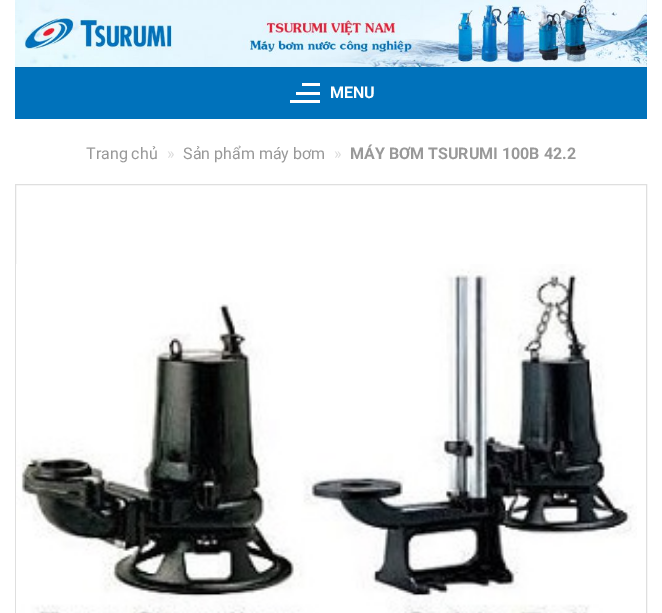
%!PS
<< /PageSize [662 613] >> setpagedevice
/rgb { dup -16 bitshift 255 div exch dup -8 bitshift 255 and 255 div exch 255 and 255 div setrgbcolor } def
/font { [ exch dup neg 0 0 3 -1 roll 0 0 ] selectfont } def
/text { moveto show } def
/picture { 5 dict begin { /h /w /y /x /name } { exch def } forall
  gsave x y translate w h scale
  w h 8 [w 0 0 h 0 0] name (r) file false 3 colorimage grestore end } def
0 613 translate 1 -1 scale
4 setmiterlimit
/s1 { /Roboto-Bold 16 font 16#FFFFFF rgb } def
/s2 { /Roboto-Regular 16 font 16#999999 rgb } def
/s3 { /Roboto-Regular 16 font 16#DBDBDB rgb } def
/s4 { /Roboto-Bold 16 font 16#999999 rgb } def
16#FFFFFF rgb
0 0 662 613 rectfill
(pic1.raw) 15 0 632 67 picture
16#056CAD rgb
15 67 632 1 rectfill
16#0072BB rgb
15 68 632 51 rectfill
16#FFFFFF rgb
302 83 18 3 rectfill
296 92 24 3 rectfill
290 100 30 3 rectfill
s1
(MENU) 330 98 text
s2
(Trang chủ) 86 159 text
s3
(») 167 159 text
s2
(Sản phẩm máy bơm) 183 159 text
s3
(») 334 159 text
s4
(MÁY BƠM TSURUMI 100B 42.2) 350 159 text
16#DFDFDF rgb
15.5 184.5 631 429 rectstroke
(pic2.raw) 16 264 621 349 picture
showpage
